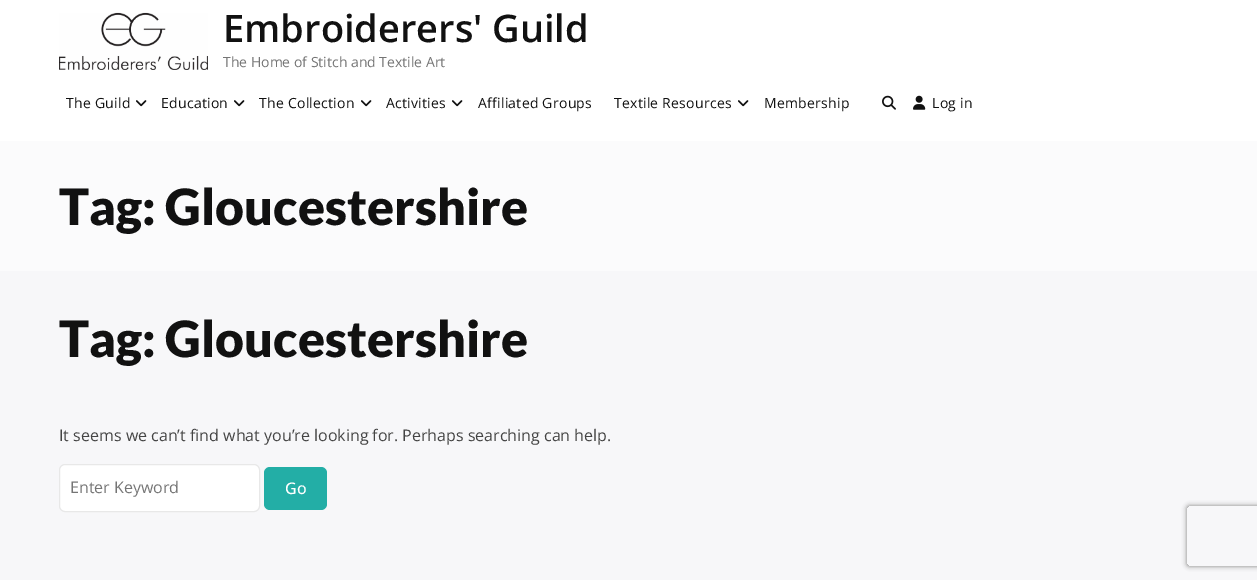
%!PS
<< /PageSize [1257 580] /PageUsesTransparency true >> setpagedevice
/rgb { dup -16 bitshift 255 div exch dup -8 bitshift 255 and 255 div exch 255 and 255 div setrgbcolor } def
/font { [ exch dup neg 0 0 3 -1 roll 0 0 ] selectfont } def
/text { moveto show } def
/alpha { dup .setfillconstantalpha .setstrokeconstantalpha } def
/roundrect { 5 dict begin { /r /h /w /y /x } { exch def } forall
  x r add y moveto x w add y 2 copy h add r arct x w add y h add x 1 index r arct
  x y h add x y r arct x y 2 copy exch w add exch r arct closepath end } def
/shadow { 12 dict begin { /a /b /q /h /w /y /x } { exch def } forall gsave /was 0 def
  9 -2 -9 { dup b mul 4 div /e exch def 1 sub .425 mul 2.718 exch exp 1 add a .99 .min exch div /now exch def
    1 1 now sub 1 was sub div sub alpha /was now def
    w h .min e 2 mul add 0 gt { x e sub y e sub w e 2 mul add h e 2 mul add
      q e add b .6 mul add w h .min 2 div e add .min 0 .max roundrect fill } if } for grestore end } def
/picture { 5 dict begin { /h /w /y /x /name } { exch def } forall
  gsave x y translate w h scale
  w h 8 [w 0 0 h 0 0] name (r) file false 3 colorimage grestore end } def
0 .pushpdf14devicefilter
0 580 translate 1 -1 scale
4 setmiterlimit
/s1 { /OpenSans-SemiBold 38 font 16#111111 rgb } def
/s2 { /OpenSans-Regular 14 font 16#757575 rgb } def
/s3 { /Lato-Black 50 font 16#111111 rgb } def
/s4 { /OpenSans-Regular 16 font 16#444444 rgb } def
/s5 { /OpenSans-Regular 16 font 16#757575 rgb } def
/s6 { /OpenSans-Medium 16 font 16#FFFFFF rgb } def
16#F7F7F9 rgb
0 0 1257 580 rectfill
16#FFFFFF rgb
0 0 1257 141 rectfill
(pic1.raw) 59 12 149 58 picture
s1
(Embroiderers' Guild) 223 42 text
s2
(The Home of Stitch and Textile Art) 223 67 text
16#111111 rgb
66 108 moveto 0.25 0 (The Guild) ashow
(pic2.raw) 136 100 11 7 picture
161 108 moveto 0.25 0 (Education) ashow
(pic2.raw) 234 100 11 7 picture
259 108 moveto 0.25 0 (The Collection) ashow
(pic2.raw) 361 100 11 7 picture
386 108 moveto 0.25 0 (Activities) ashow
(pic2.raw) 452 100 11 7 picture
478 108 moveto 0.25 0 (Affiliated Groups) ashow
614 108 moveto 0.25 0 (Textile Resources) ashow
(pic2.raw) 738 100 11 7 picture
764 108 moveto 0.25 0 (Membership) ashow
(pic3.raw) 882 95 14 15 picture
(pic4.raw) 913 95 13 15 picture
932 108 moveto 0.25 0 (Log in) ashow
16#FBFBFC rgb
0 141 1257 130 rectfill
s3
(Tag: Gloucestershire) 59 225 text
(Tag: Gloucestershire) 59 357 text
s4
(It seems we can’t find what you’re looking for. Perhaps searching can help.) 59 441 text
16#FFFFFF rgb
59.5 464.5 200 47 5.5 roundrect gsave fill grestore
16#E8E8E8 rgb
stroke
s5
(Enter Keyword) 70 493 text
16#23AEA6 rgb
264 467 63 43 6 roundrect fill
s6
(Go) 285 494 text
gsave
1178 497 moveto 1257 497 lineto 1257 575 lineto 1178 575 lineto closepath 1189 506 moveto 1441 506 lineto 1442 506 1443 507 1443 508 curveto 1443 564 lineto 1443 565 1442 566 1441 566 curveto 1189 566 lineto 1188 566 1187 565 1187 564 curveto 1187 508 lineto 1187 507 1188 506 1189 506 curveto closepath eoclip newpath
16#808080 rgb
1187 506 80 60 2 2.5 1 shadow
grestore
.poppdf14devicefilter showpage
